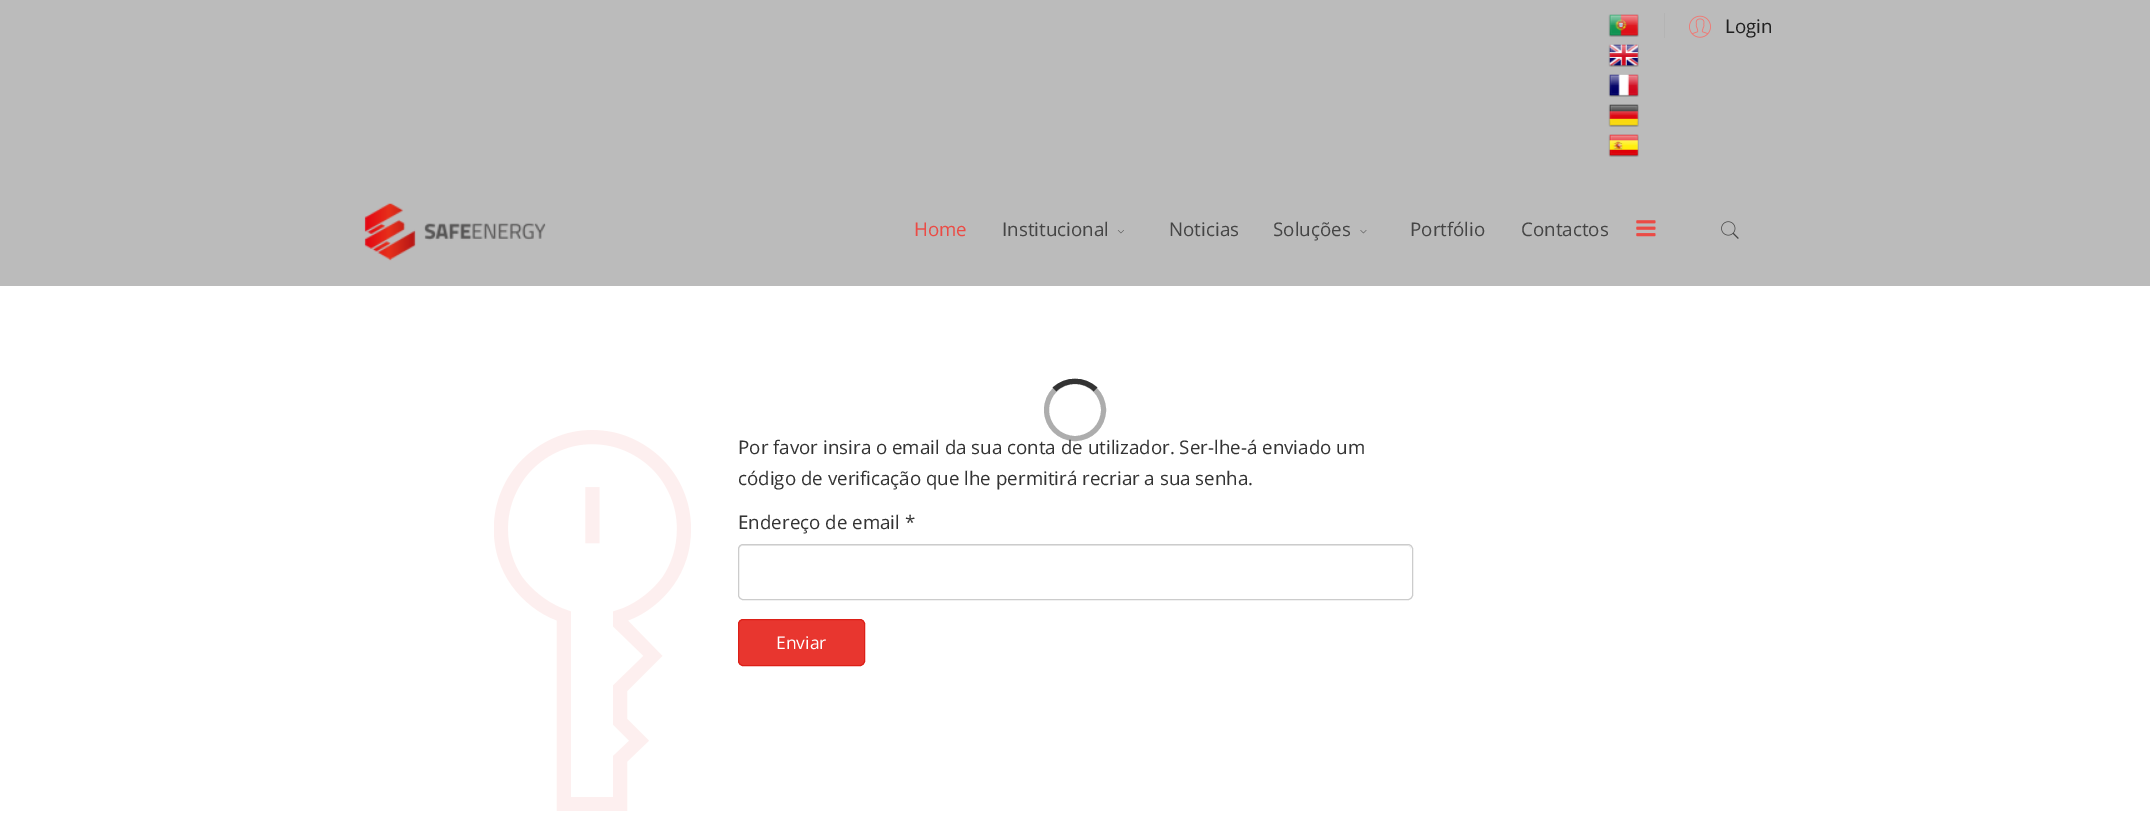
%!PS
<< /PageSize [2150 823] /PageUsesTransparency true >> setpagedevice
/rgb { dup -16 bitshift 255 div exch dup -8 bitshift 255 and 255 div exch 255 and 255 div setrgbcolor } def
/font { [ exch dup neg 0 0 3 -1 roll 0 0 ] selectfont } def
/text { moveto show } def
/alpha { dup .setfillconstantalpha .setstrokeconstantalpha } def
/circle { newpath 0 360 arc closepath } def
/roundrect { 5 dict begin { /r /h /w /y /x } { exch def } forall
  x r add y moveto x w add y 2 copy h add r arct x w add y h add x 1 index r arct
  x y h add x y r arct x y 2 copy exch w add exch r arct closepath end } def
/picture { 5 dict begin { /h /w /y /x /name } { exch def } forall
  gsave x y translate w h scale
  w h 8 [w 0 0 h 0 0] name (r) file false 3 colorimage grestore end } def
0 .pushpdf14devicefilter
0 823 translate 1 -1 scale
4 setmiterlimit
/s1 { /OpenSans-Regular 18.75 font 16#212121 rgb } def
/s2 { /OpenSans-Regular 18.75 font 16#EB4B45 rgb } def
/s3 { /OpenSans-Regular 18.75 font 16#454545 rgb } def
/s4 { /OpenSans-Regular 18.75 font 16#333333 rgb } def
/s5 { /OpenSans-Regular 17.5 font 16#FFFFFF rgb } def
16#FFFFFF rgb
0 0 2150 823 rectfill
16#BBBBBB rgb
0 0 2150 286 rectfill
(pic1.raw) 1608 14 31 23 picture
(pic2.raw) 1608 44 31 23 picture
(pic3.raw) 1608 74 31 23 picture
(pic4.raw) 1608 104 31 23 picture
(pic5.raw) 1608 134 31 23 picture
16#B4B4B4 rgb
1664 13 1 25 rectfill
(pic6.raw) 1689 15 22 23 picture
s1
(Login) 1725 33 text
(pic7.raw) 364 203 182 58 picture
s2
(Home) 914 236 text
s3
(Institucional) 1002 236 text
(pic8.raw) 1117 230 7 4 picture
(Noticias) 1169 236 text
(Soluções) 1273 236 text
(pic9.raw) 1360 230 7 4 picture
(Portfólio) 1410 236 text
(Contactos) 1521 236 text
(pic10.raw) 1636 220 20 17 picture
(pic11.raw) 1721 221 18 18 picture
s4
(Por favor insira o email da sua conta de utilizador. Ser-lhe-á enviado um) 738 454 text
0.4 alpha
5 setlinewidth
1075 410 28.5 circle stroke
1 alpha
1054.5 389.5 moveto 1065.5 378.5 1084.5 378.5 1095.5 389.5 curveto stroke
(pic12.raw) 494 430 197 381 picture
(código de verificação que lhe permitirá recriar a sua senha.) 738 485 text
(Endereço de email *) 738 529 text
16#ECECEC rgb
742 546 moveto 1408 546 lineto 1410 546 1411 548 1411 550 curveto 1411 547 1410 545 1407 545 curveto 743 545 lineto 740 546 lineto 739 547 lineto 739 550 lineto 739 548 740 546 742 546 curveto closepath fill
16#CCCCCC rgb
1 setlinewidth
738.5 544.5 674 55 4.5 roundrect stroke
16#E8362F rgb
738.5 619.5 126 46 4.5 roundrect gsave fill grestore
16#DC1F17 rgb
stroke
s5
(Enviar) 776 649 text
.poppdf14devicefilter showpage
